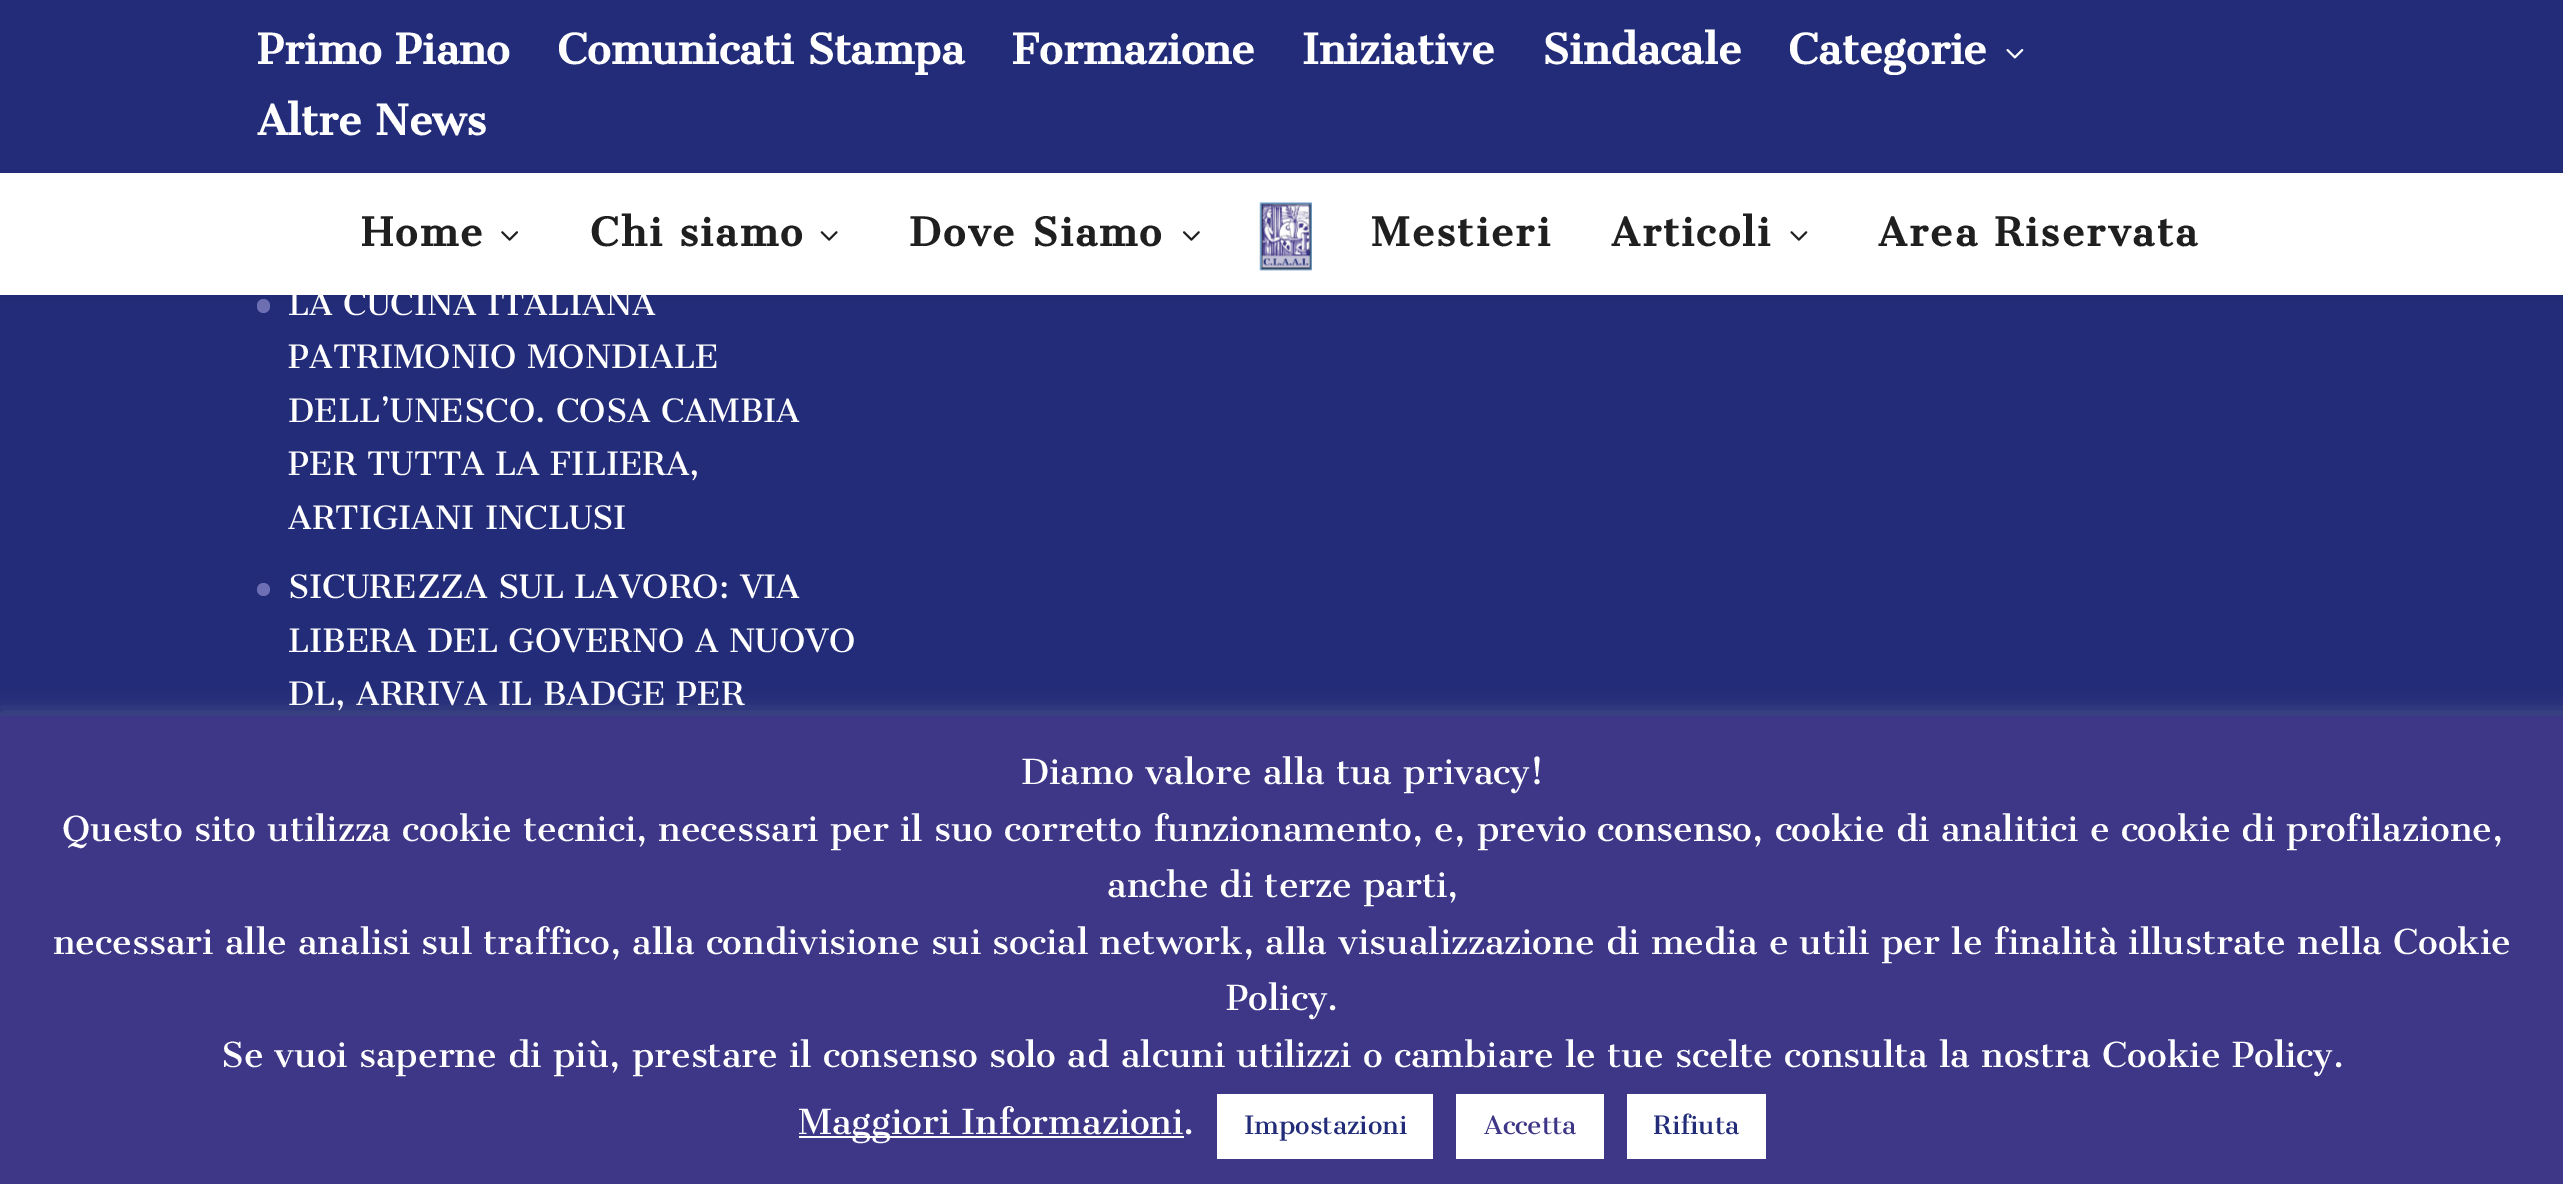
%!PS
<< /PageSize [2563 1184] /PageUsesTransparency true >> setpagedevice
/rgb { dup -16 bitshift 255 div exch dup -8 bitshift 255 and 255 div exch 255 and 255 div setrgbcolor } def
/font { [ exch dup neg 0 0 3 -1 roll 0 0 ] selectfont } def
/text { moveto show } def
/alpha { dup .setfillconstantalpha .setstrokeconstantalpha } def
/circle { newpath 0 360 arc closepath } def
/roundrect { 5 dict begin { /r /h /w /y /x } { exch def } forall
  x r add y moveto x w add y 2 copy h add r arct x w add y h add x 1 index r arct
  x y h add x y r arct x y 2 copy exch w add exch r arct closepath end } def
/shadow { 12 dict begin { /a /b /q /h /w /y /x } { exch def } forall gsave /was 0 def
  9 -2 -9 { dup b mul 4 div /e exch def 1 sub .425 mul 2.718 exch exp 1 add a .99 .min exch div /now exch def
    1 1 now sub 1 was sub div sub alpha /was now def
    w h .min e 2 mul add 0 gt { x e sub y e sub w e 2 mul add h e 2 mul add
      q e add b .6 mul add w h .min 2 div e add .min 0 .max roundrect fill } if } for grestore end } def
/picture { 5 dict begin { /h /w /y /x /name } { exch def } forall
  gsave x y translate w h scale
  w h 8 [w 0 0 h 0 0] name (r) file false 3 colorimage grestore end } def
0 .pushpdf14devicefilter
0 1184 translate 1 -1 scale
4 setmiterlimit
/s1 { /CantataOne-Bold 40.5 font 16#FFFFFF rgb } def
/s2 { /CantataOne-Regular 31.5 font 16#FFFFFF rgb } def
/s3 { /CantataOne-Regular 33.75 font 16#FFFFFF rgb } def
/s4 { /CantataOne-Regular 24.75 font 16#232C79 rgb } def
/s5 { /CantataOne-Regular 24.75 font 16#3E3788 rgb } def
16#232C79 rgb
0 0 2563 1184 rectfill
16#6E6EB5 rgb
257 299 13 14 6.5 roundrect fill
16#000000 rgb
0 173 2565 122 0 8 0.1 shadow
16#232C79 rgb
0 167 2563 6 rectfill
s1
(Primo Piano) 257 64 text
(Comunicati Stampa) 557 64 text
(Formazione) 1012 64 text
(Iniziative) 1302 64 text
(Sindacale) 1542 64 text
(Categorie) 1788 64 text
(pic1.raw) 2006 49 18 10 picture
(Altre News) 257 135 text
0 173 2563 122 rectfill
/CantataOne-Bold 38.25 font
16#1F1F1F rgb
361 246 moveto 2.25 0 (Home) ashow
(pic2.raw) 501 231 17 10 picture
590 246 moveto 2.25 0 (Chi siamo) ashow
(pic3.raw) 820 231 18 10 picture
909 246 moveto 2.25 0 (Dove Siamo) ashow
(pic4.raw) 1183 231 17 10 picture
(pic5.raw) 1259 202 53 69 picture
1371 246 moveto 2.25 0 (Mestieri) ashow
1611 246 moveto 2.25 0 (Articoli) ashow
(pic6.raw) 1790 231 18 10 picture
1878 246 moveto 2.25 0 (Area Riservata) ashow
s2
(LA CUCINA ITALIANA) 288 315 text
(PATRIMONIO MONDIALE) 288 368 text
(DELL’UNESCO. COSA CAMBIA) 288 422 text
(PER TUTTA LA FILIERA,) 288 475 text
(ARTIGIANI INCLUSI) 288 529 text
16#6E6EB5 rgb
263.5 589.5 6.5 circle fill
s2
(SICUREZZA SUL LAVORO: VIA) 288 598 text
(LIBERA DEL GOVERNO A NUOVO) 288 652 text
(DL, ARRIVA IL BADGE PER) 288 705 text
16#ACABAB rgb
0 713 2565 471 0 11 0.3 shadow
16#3E3788 rgb
0 716 2563 468 rectfill
s3
(Diamo valore alla tua privacy!) 1021 784 text
(Questo sito utilizza cookie tecnici, necessari per il suo corretto funzionamento, e, previo consenso, cookie di analitici e cookie di profilazione,) 62 841 text
(anche di terze parti,) 1107 897 text
(necessari alle analisi sul traffico, alla condivisione sui social network, alla visualizzazione di media e utili per le finalità illustrate nella Cookie) 53 954 text
(Policy.) 1226 1010 text
(Se vuoi saperne di più, prestare il consenso solo ad alcuni utilizzi o cambiare le tue scelte consulta la nostra Cookie Policy.) 221 1067 text
799 1136 385 2 rectfill
(Maggiori Informazioni.) 798 1134 text
1217 1094 216 65 rectfill
s4
(Impostazioni) 1244 1134 text
16#FFFFFF rgb
1456 1094 148 65 rectfill
s5
(Accetta) 1484 1134 text
16#FFFFFF rgb
1627 1094 139 65 rectfill
s4
(Rifiuta) 1653 1134 text
.poppdf14devicefilter showpage
